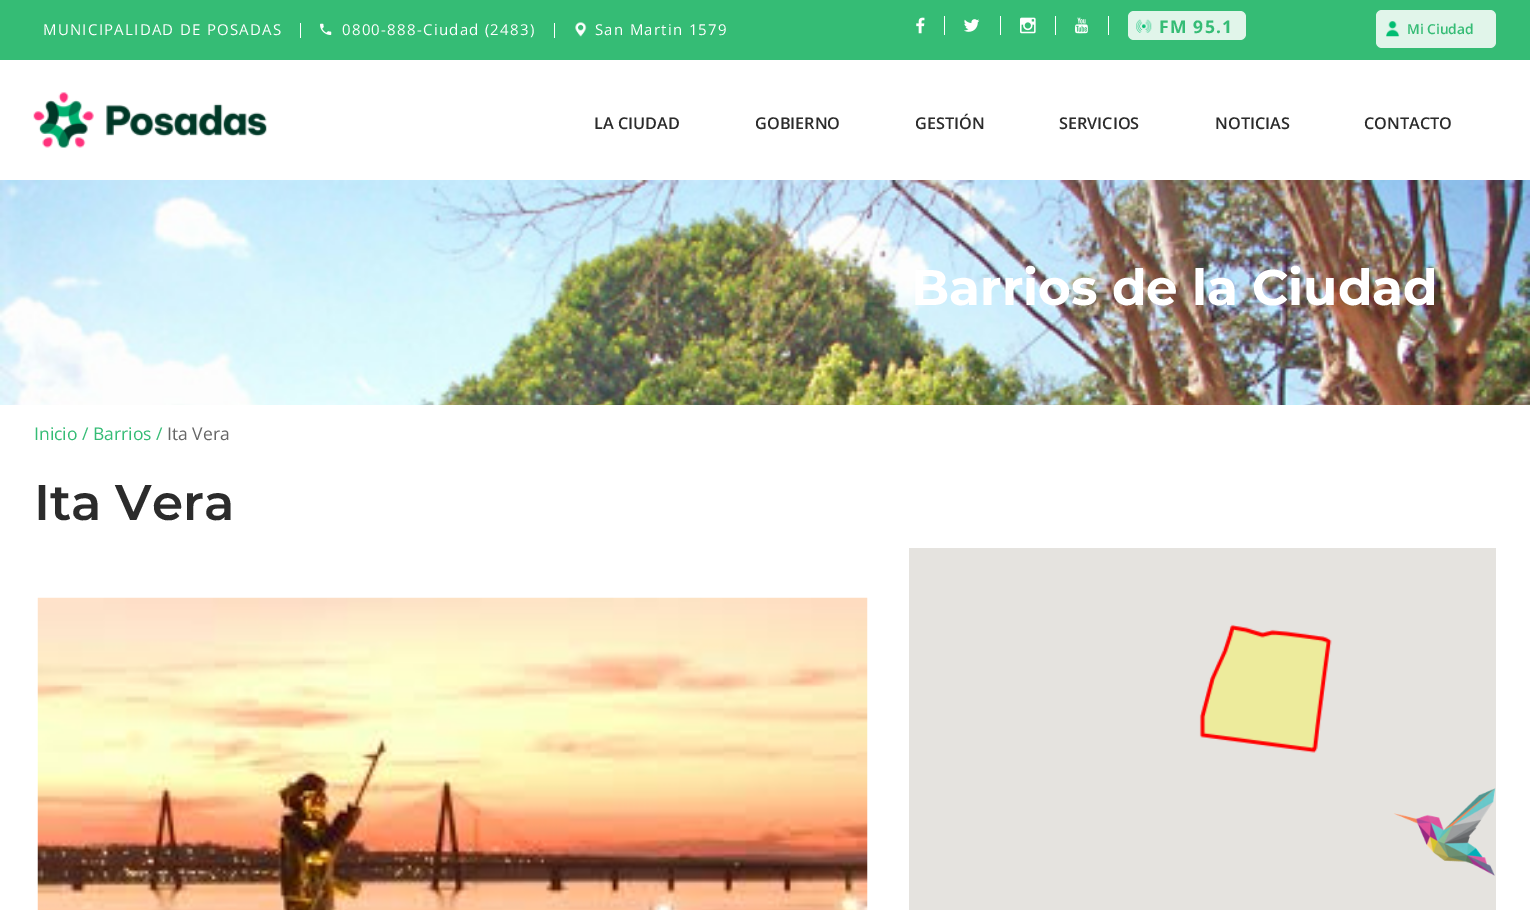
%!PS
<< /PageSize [1530 910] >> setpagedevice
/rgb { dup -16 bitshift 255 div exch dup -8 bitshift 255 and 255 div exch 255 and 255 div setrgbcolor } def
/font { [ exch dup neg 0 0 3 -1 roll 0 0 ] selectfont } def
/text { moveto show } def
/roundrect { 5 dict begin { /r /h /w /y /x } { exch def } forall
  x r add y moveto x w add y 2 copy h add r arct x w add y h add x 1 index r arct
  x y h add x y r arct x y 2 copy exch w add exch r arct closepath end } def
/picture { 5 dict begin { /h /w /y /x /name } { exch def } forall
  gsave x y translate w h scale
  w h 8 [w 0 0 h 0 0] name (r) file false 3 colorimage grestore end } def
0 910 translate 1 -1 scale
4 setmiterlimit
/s1 { /OpenSans-SemiBold 13.75 font 16#35BC75 rgb } def
/s2 { /OpenSans-SemiBold 16.25 font 16#2B2B2B rgb } def
/s3 { /Montserrat-Bold 50 font 16#FFFFFF rgb } def
/s4 { /OpenSans-Regular 17.5 font 16#35BC75 rgb } def
/s5 { /OpenSans-Regular 17.5 font 16#666666 rgb } def
/s6 { /Montserrat-SemiBold 50 font 16#2B2B2B rgb } def
16#FFFFFF rgb
0 0 1530 910 rectfill
16#35BC75 rgb
0 0 1530 60 rectfill
16#FFFFFF rgb
300 23 1 15 rectfill
/OpenSans-Regular 15 font
43 35 moveto 1.25 0 (MUNICIPALIDAD DE POSADAS) ashow
554 23 1 15 rectfill
(pic1.raw) 320 23 12 12 picture
342 35 moveto 1.25 0 (0800-888-Ciudad \(2483\)) ashow
(pic2.raw) 575 22 12 15 picture
595 35 moveto 1.25 0 (San Martin 1579) ashow
944 16 1 19 rectfill
(pic3.raw) 916 17 9 17 picture
1000 16 1 19 rectfill
(pic4.raw) 964 19 16 13 picture
1055 16 1 19 rectfill
(pic5.raw) 1020 17 16 17 picture
1108 16 1 19 rectfill
(pic6.raw) 1075 17 13 17 picture
16#E1F5EA rgb
1128 11 118 29 6 roundrect fill
(pic7.raw) 1136 19 16 14 picture
/OpenSans-Bold 17.5 font
16#35BC75 rgb
1159 33 moveto 1.25 0 (FM 95.1) ashow
16#E1F5EA rgb
1376 10 120 38 6 roundrect fill
(pic8.raw) 1386 21 14 16 picture
s1
(Mi Ciudad) 1407 34 text
(pic9.raw) 33 92 234 56 picture
s2
(LA CIUDAD) 594 129 text
(GOBIERNO) 755 129 text
(GESTIÓN) 915 129 text
(SERVICIOS) 1059 129 text
(NOTICIAS) 1215 129 text
(CONTACTO) 1364 129 text
16#E5E3DF rgb
909 548 587 362 rectfill
(pic10.raw) 1393 788 103 88 picture
(pic11.raw) 0 180 1530 225 picture
s3
(Barrios de la Ciudad) 911 305 text
s4
(Inicio / Barrios /) 34 440 text
s5
(Ita Vera) 167 440 text
s6
(Ita Vera) 34 520 text
(pic12.raw) 37 597 831 313 picture
(pic13.raw) 1199 624 133 101 picture
(pic14.raw) 1199 725 122 28 picture
showpage
